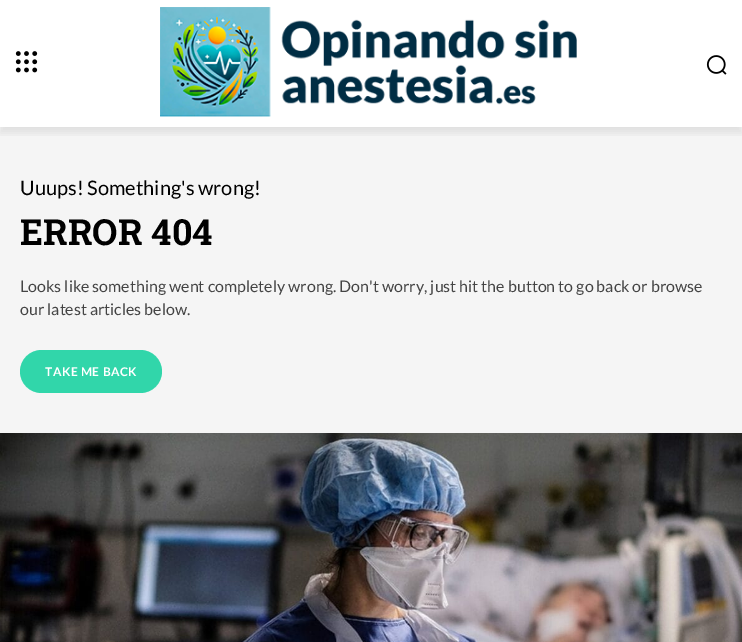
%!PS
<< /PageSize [742 642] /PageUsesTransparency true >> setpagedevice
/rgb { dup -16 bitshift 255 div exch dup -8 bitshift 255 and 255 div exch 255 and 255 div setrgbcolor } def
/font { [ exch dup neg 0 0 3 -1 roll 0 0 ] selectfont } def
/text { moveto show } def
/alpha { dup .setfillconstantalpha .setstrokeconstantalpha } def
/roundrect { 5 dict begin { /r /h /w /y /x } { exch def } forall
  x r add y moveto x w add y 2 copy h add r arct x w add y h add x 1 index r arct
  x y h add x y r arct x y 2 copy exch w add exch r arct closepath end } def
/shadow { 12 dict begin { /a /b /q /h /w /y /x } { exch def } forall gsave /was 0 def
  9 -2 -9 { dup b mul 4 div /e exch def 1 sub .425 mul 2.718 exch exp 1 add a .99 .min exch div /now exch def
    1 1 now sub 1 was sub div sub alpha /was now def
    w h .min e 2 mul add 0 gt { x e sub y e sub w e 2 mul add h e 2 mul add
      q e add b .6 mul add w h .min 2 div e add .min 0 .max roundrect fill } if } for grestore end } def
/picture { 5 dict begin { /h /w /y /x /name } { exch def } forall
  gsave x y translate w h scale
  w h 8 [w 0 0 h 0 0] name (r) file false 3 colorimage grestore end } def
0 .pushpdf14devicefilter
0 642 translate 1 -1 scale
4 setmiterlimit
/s1 { /Lato-Regular 20 font 16#000000 rgb } def
/s2 { /RobotoSlab-Bold 36 font 16#000000 rgb } def
/s3 { /Lato-Regular 16 font 16#444444 rgb } def
16#FFFFFF rgb
0 0 742 642 rectfill
(pic1.raw) 15 51 23 22 picture
(pic2.raw) 160 7 417 110 picture
(pic3.raw) 706 55 21 20 picture
16#F5F5F5 rgb
0 127 742 306 rectfill
gsave
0 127 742 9 rectclip
16#000000 rgb
0 6 742 127 0 4 0.08 shadow
grestore
s1
(Uuups! Something's wrong!) 20 195 text
s2
(ERROR 404) 20 245 text
s3
(Looks like something went completely wrong. Don't worry, just hit the button to go back or browse) 20 292 text
(our latest articles below.) 20 315 text
16#31D6AA rgb
20 350 142 43 21.5 roundrect fill
/Lato-Bold 12 font
16#FFFFFF rgb
45 376 moveto 0.5 0 (TAKE ME BACK) ashow
(pic4.raw) 0 433 742 209 picture
.poppdf14devicefilter showpage
